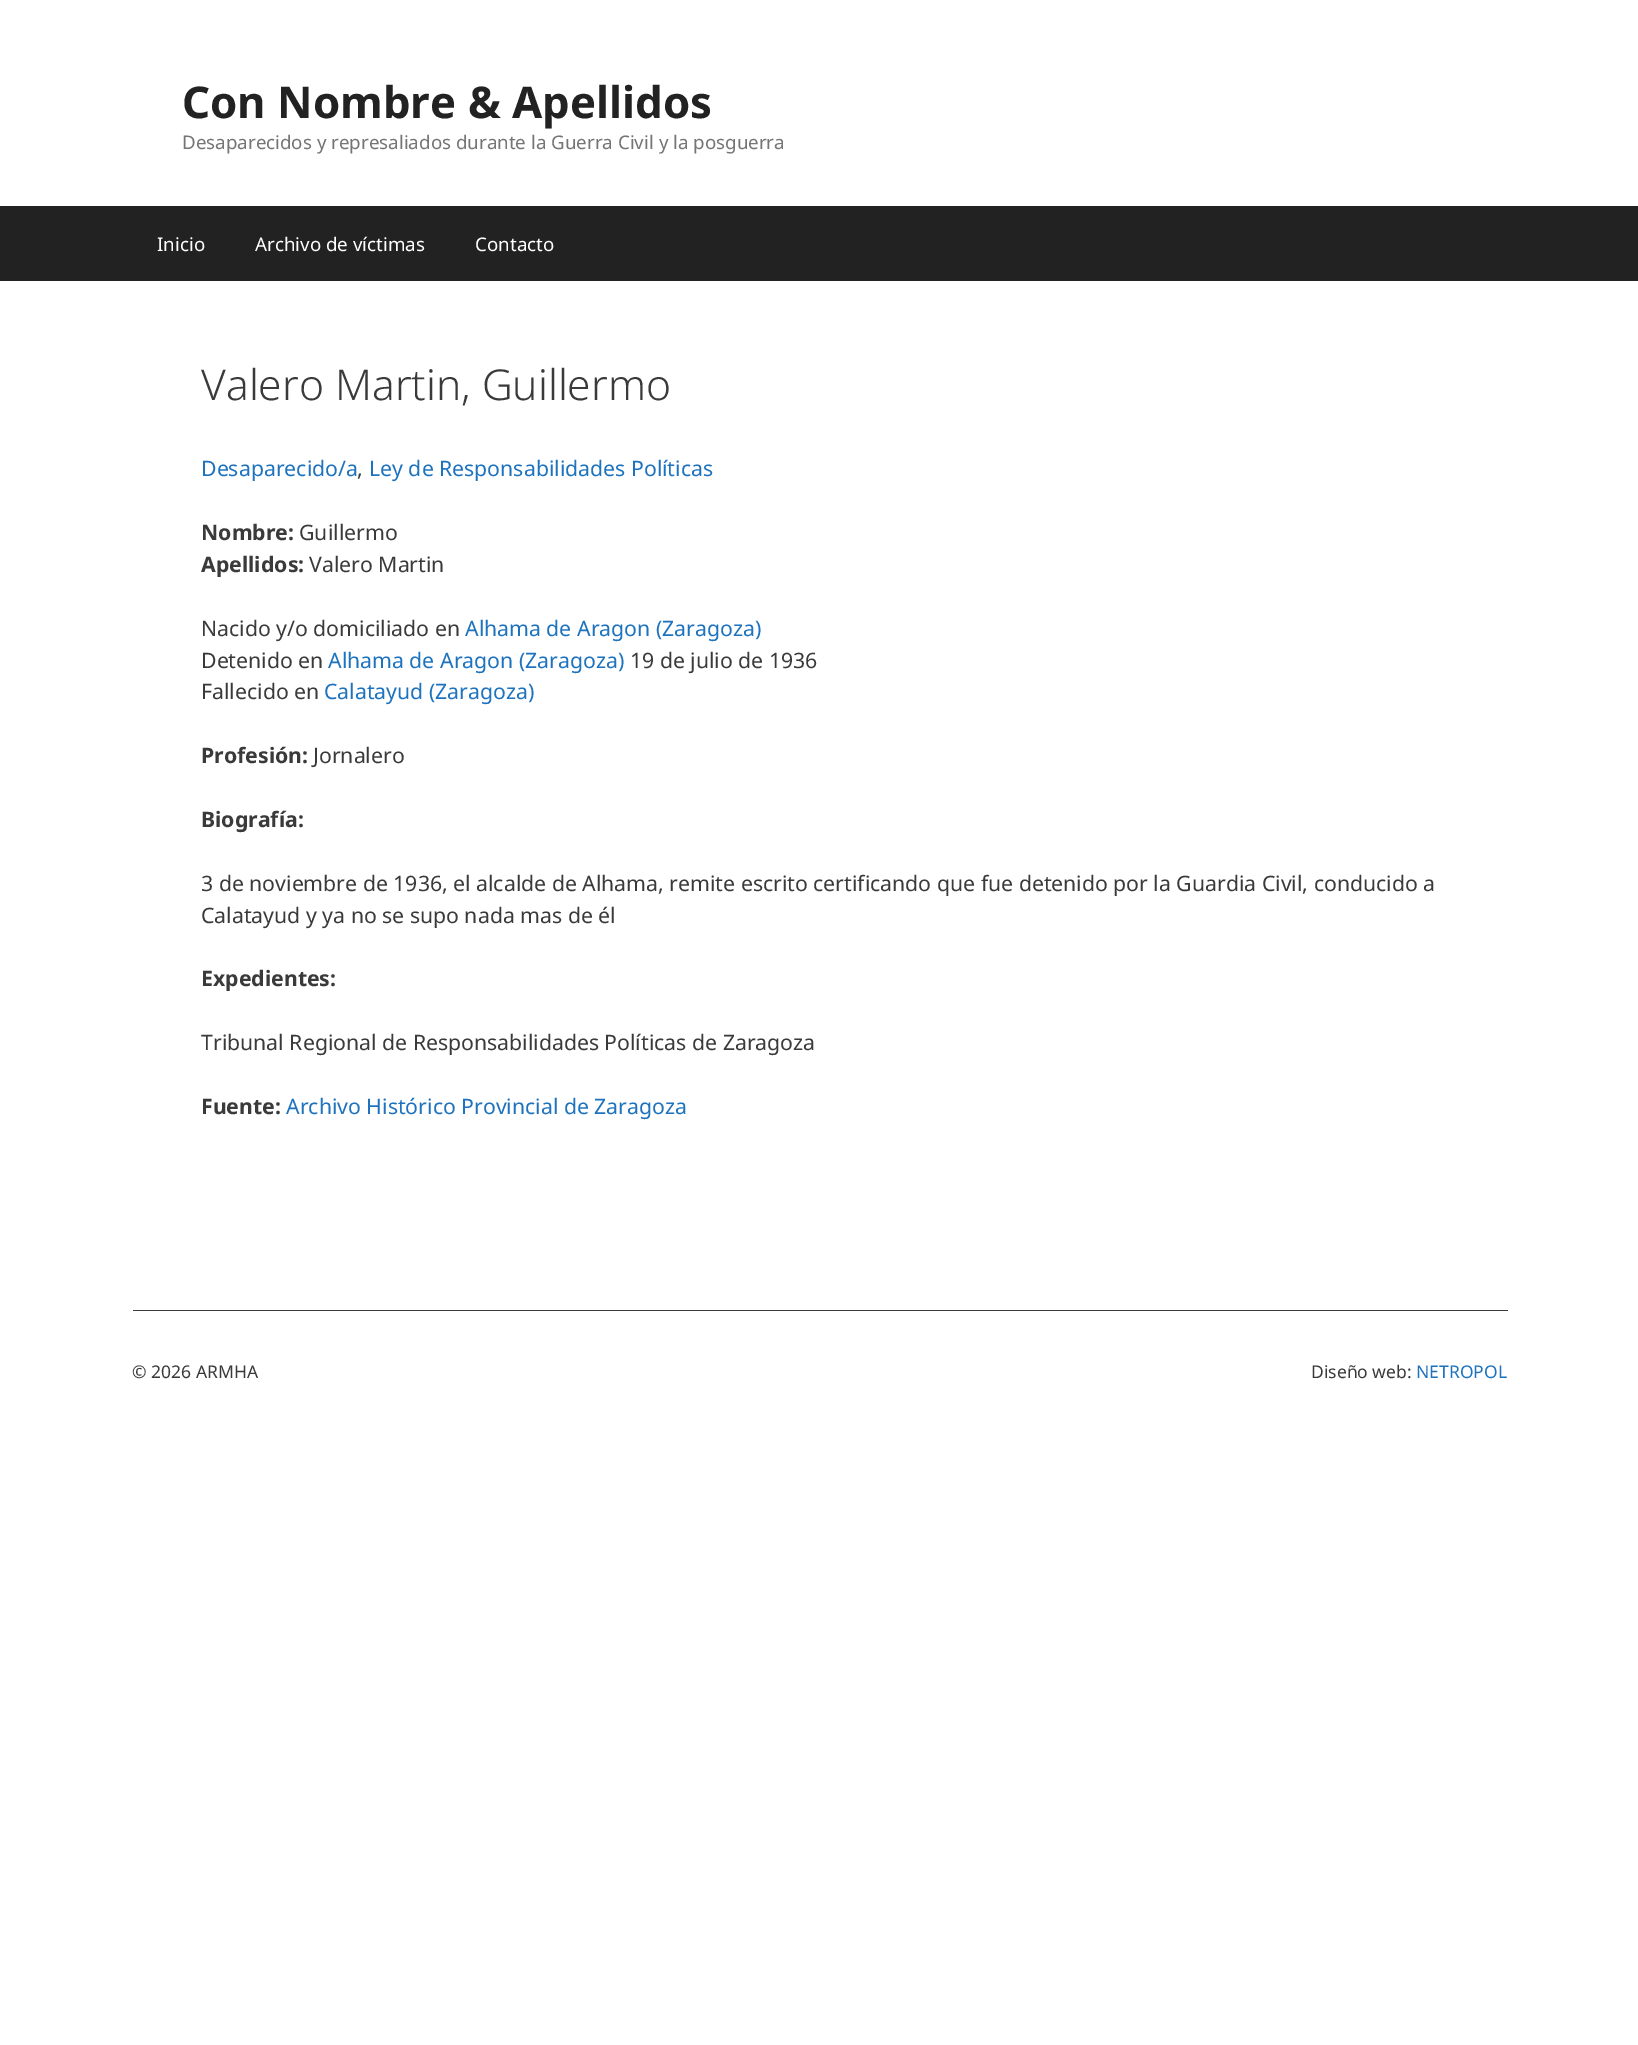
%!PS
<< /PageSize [1638 2045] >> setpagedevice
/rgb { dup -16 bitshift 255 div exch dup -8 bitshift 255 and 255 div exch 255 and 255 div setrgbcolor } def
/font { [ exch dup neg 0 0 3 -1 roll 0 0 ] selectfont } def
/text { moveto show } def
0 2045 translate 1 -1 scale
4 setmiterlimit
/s1 { /NotoSans-Bold 43.75 font 16#222222 rgb } def
/s2 { /NotoSans-Regular 18.75 font 16#757575 rgb } def
/s3 { /NotoSans-Regular 18.75 font 16#FFFFFF rgb } def
/s4 { /NotoSans-Light 42.5 font 16#3A3A3A rgb } def
/s5 { /NotoSans-Regular 21.25 font 16#1E73BE rgb } def
/s6 { /NotoSans-Regular 21.25 font 16#3A3A3A rgb } def
/s7 { /NotoSans-Bold 21.25 font 16#3A3A3A rgb } def
/s8 { /NotoSans-Regular 17.5 font 16#3A3A3A rgb } def
/s9 { /NotoSans-Regular 17.5 font 16#1E73BE rgb } def
16#FFFFFF rgb
0 0 1638 2045 rectfill
s1
(Con Nombre & Apellidos) 182 118 text
s2
(Desaparecidos y represaliados durante la Guerra Civil y la posguerra) 182 149 text
16#222222 rgb
0 206 1638 75 rectfill
s3
(Inicio) 157 251 text
(Archivo de víctimas) 255 251 text
(Contacto) 475 251 text
s4
(Valero Martin, Guillermo) 201 400 text
s5
(Desaparecido/a) 201 476 text
s6
(,) 357 476 text
s5
(Ley de Responsabilidades Políticas) 369 476 text
s7
(Nombre:) 201 540 text
s6
(Guillermo) 299 540 text
s7
(Apellidos:) 201 572 text
s6
(Valero Martin) 309 572 text
(Nacido y/o domiciliado en) 201 636 text
s5
(Alhama de Aragon \(Zaragoza\)) 465 636 text
s6
(Detenido en) 201 668 text
s5
(Alhama de Aragon \(Zaragoza\)) 328 668 text
s6
(19 de julio de 1936) 630 668 text
(Fallecido en) 201 699 text
s5
(Calatayud \(Zaragoza\)) 324 699 text
s7
(Profesión:) 201 763 text
s6
(Jornalero) 313 763 text
s7
(Biografía:) 201 827 text
s6
(3 de noviembre de 1936, el alcalde de Alhama, remite escrito certificando que fue detenido por la Guardia Civil, conducido a) 201 891 text
(Calatayud y ya no se supo nada mas de él) 201 923 text
s7
(Expedientes:) 201 986 text
s6
(Tribunal Regional de Responsabilidades Políticas de Zaragoza) 201 1050 text
s7
(Fuente:) 201 1114 text
s5
(Archivo Histórico Provincial de Zaragoza) 286 1114 text
16#3A3A3A rgb
133 1310 1375 1 rectfill
s8
(© 2026 ARMHA) 132 1378 text
(Diseño web:) 1311 1378 text
s9
(NETROPOL) 1416 1378 text
showpage
